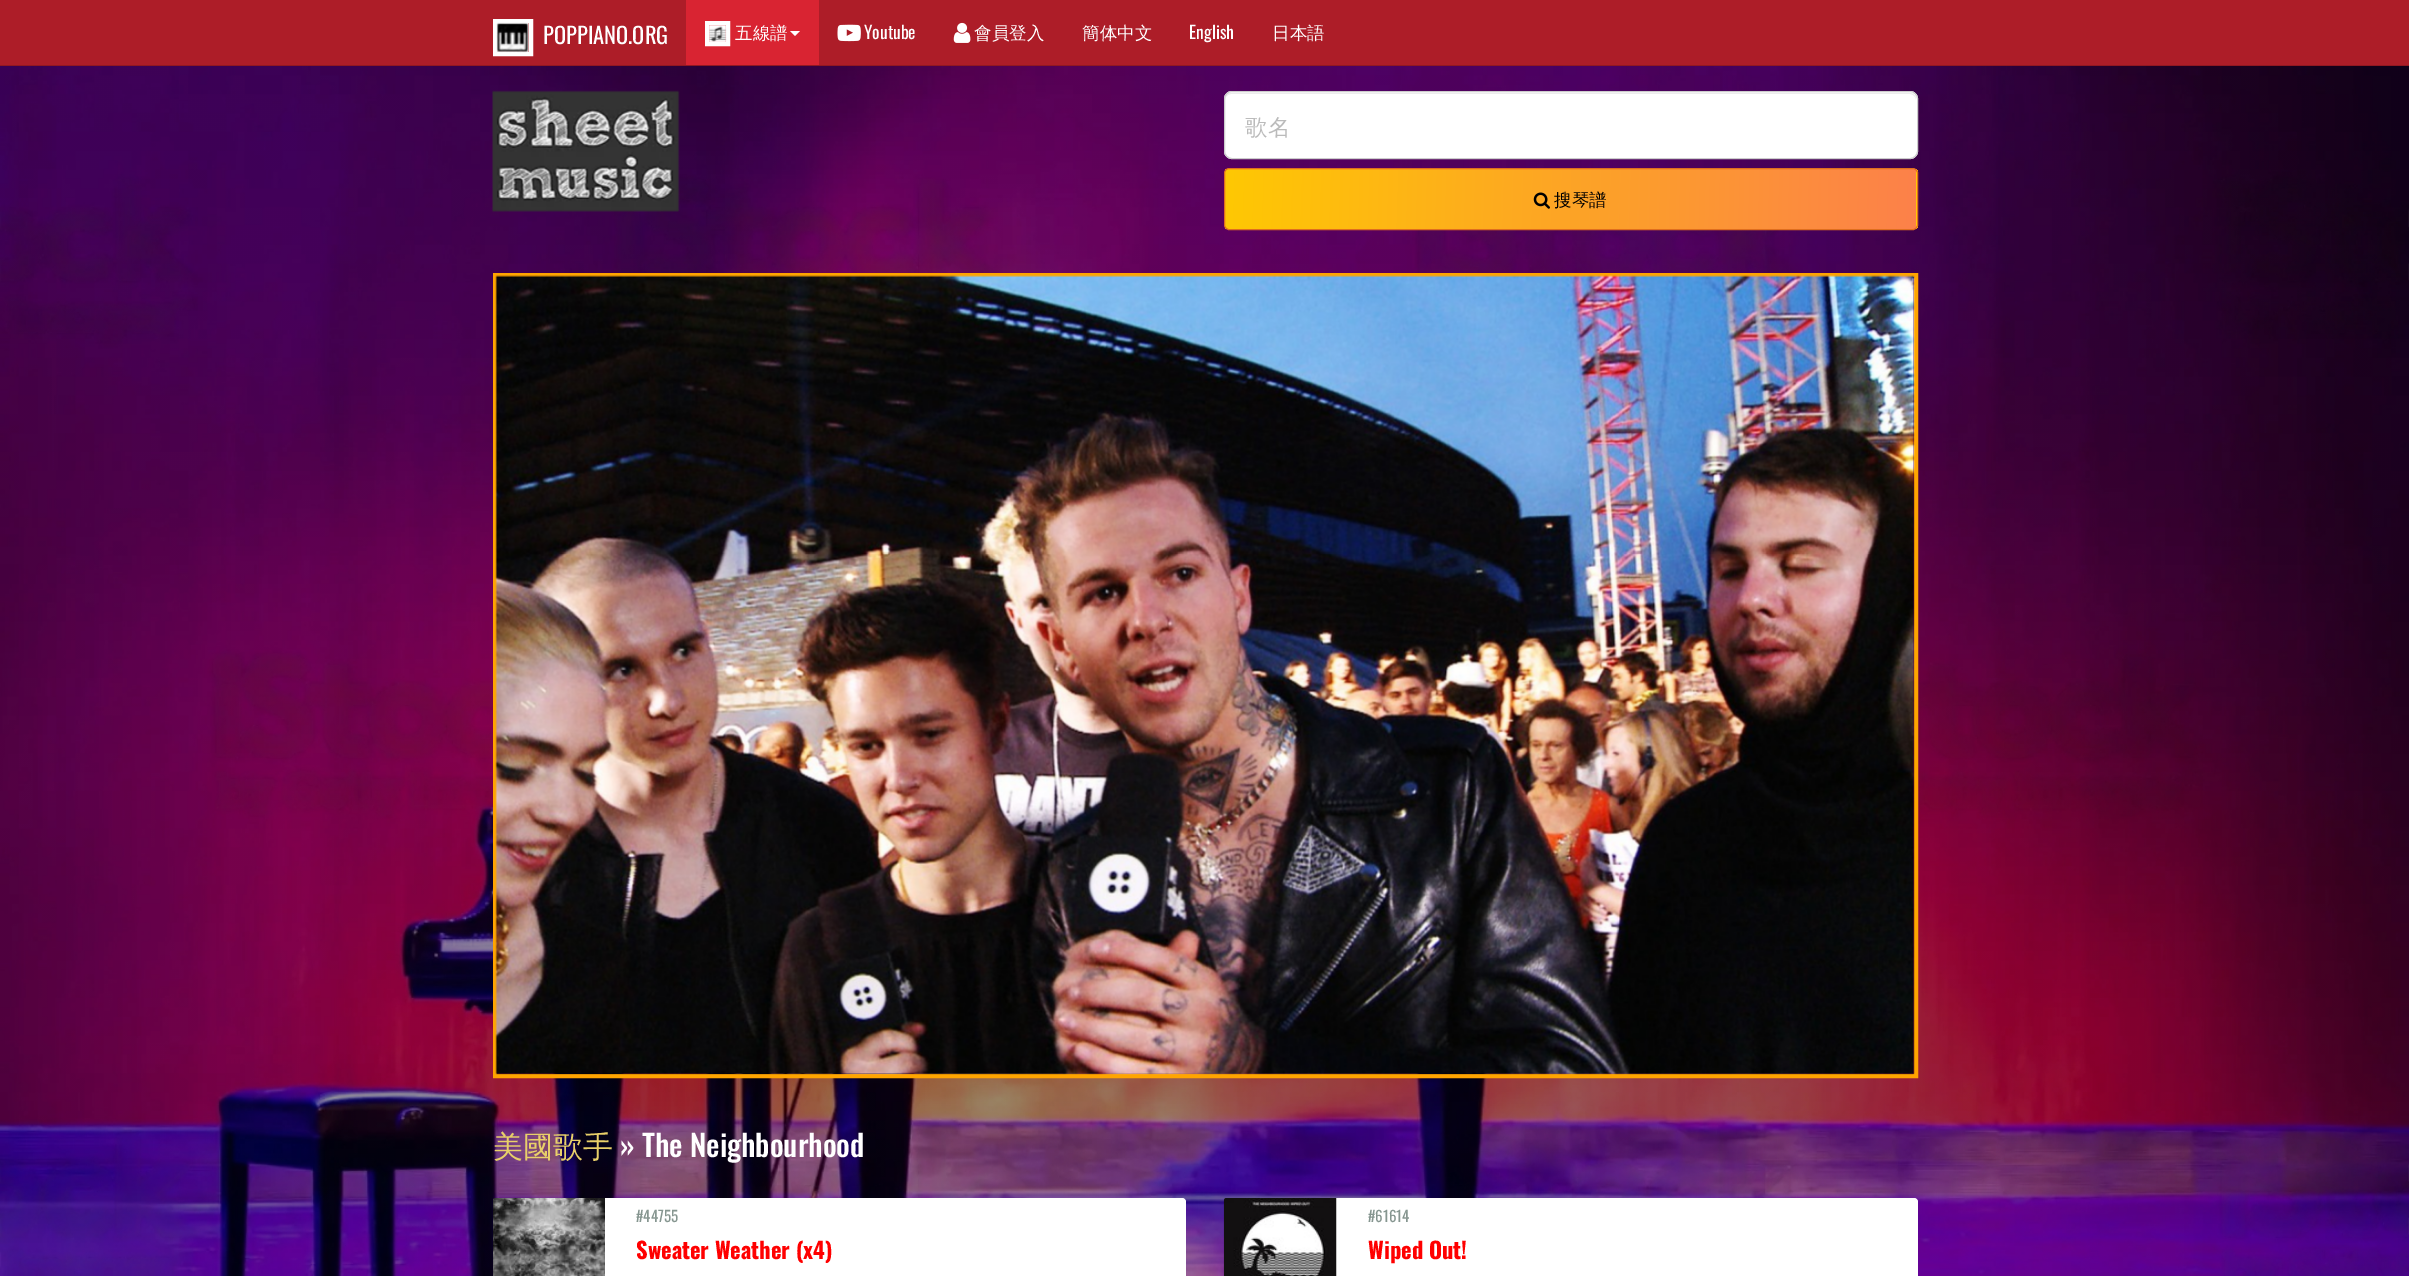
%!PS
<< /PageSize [2409 1276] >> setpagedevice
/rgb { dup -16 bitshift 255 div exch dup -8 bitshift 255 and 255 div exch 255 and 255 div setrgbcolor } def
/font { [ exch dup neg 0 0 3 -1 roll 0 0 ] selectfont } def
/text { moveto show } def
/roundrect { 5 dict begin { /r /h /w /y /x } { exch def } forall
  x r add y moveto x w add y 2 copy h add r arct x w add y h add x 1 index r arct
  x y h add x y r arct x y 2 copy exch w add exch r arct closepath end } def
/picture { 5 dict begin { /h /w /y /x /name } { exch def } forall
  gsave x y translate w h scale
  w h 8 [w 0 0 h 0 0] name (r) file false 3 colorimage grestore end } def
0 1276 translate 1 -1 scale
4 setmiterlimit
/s1 { /Oswald-Regular 22.5 font 16#FFFFFF rgb } def
/s2 { /WenQuanYiZenHei-Medium 17.5 font 16#FFFFFF rgb } def
/s3 { /Oswald-Regular 17.5 font 16#FFFFFF rgb } def
/s4 { /WenQuanYiZenHei-Medium 22.5 font 16#BBBBBB rgb } def
/s5 { /WenQuanYiZenHei-Medium 17.5 font 16#000000 rgb } def
/s6 { /WenQuanYiZenHei-Medium 30 font 16#E8D069 rgb } def
/s7 { /Oswald-Medium 30 font 16#FFFFFF rgb } def
/s8 { /Oswald-Regular 15 font 16#869690 rgb } def
/s9 { /Oswald-Bold 22.5 font 16#FF0000 rgb } def
16#FFFFFF rgb
0 0 2409 1276 rectfill
(pic1.raw) 0 66 2409 1210 picture
16#AD1D28 rgb
0 0 2409 65 rectfill
16#911821 rgb
0 65 2409 1 rectfill
16#FFFFFF rgb
4 setlinewidth
495 21 36 33 rectstroke
(pic2.raw) 496 22 33 31 picture
s1
(POPPIANO.ORG) 543 44 text
16#D92432 rgb
686 0 133 65 rectfill
16#FFFFFF rgb
707 23 21 21 rectstroke
s2
(五線譜) 735 39 text
(pic3.raw) 709 25 18 17 picture
790 31 moveto 800 31 lineto 795 36 lineto closepath fill
(pic4.raw) 837 24 24 18 picture
s3
(Youtube) 864 39 text
(pic5.raw) 953 22 18 21 picture
s2
(會員登入) 974 39 text
(簡体中文) 1082 39 text
s3
(English) 1189 39 text
s2
(日本語) 1272 39 text
(pic6.raw) 492 90 188 122 picture
1224 91 694 68 8 roundrect fill
16#ECECEC rgb
1231 94 moveto 1910 94 lineto 1913 94 1916 97 1916 100 curveto 1916 99 lineto 1916 96 1913 93 1910 93 curveto 1231 93 lineto 1228 93 1225 96 1225 99 curveto 1225 100 lineto 1225 97 1228 94 1231 94 curveto closepath fill
16#CCCCCC rgb
1 setlinewidth
1224.5 91.5 693 67 7.5 roundrect stroke
s4
(歌名) 1245 135 text
gsave 1225 169 moveto 1916 169 lineto 1916 229 lineto 1225 229 lineto closepath clip newpath
<< /ShadingType 2 /ColorSpace /DeviceRGB /Coords [1224 188 1917 210] /Extend [true true] /Function << /FunctionType 2 /Domain [0 1] /C0 [1 0.784 0.012] /C1 [0.988 0.506 0.29] /N 1 >> >> shfill grestore
gsave
1224 168 694 62 5 roundrect clip newpath
gsave 1916 169 moveto 1918 169 lineto 1918 229 lineto 1916 229 lineto closepath clip newpath
<< /ShadingType 2 /ColorSpace /DeviceRGB /Coords [1916 188 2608 210] /Extend [true true] /Function << /FunctionType 2 /Domain [0 1] /C0 [1 0.784 0.012] /C1 [0.988 0.506 0.29] /N 1 >> >> shfill grestore
grestore
16#DF6E1E rgb
1224.5 168.5 693 61 4.5 roundrect stroke
(pic7.raw) 1533 192 17 17 picture
s5
(搜琴譜) 1554 206 text
16#FFA500 rgb
4 setlinewidth
495 275 1421 801 rectstroke
(pic8.raw) 495 275 1420 800 picture
s6
(美國歌手) 493 1157 text
s7
(» The Neighbourhood) 620 1157 text
493 1198 693 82 4 roundrect fill
(pic9.raw) 493 1198 112 78 picture
s8
(#44755) 636 1222 text
s9
(Sweater Weather \(x4\)) 636 1259 text
16#FFFFFF rgb
1224 1198 694 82 4 roundrect fill
(pic10.raw) 1223 1198 114 78 picture
s8
(#61614) 1368 1222 text
s9
(Wiped Out!) 1368 1259 text
showpage
